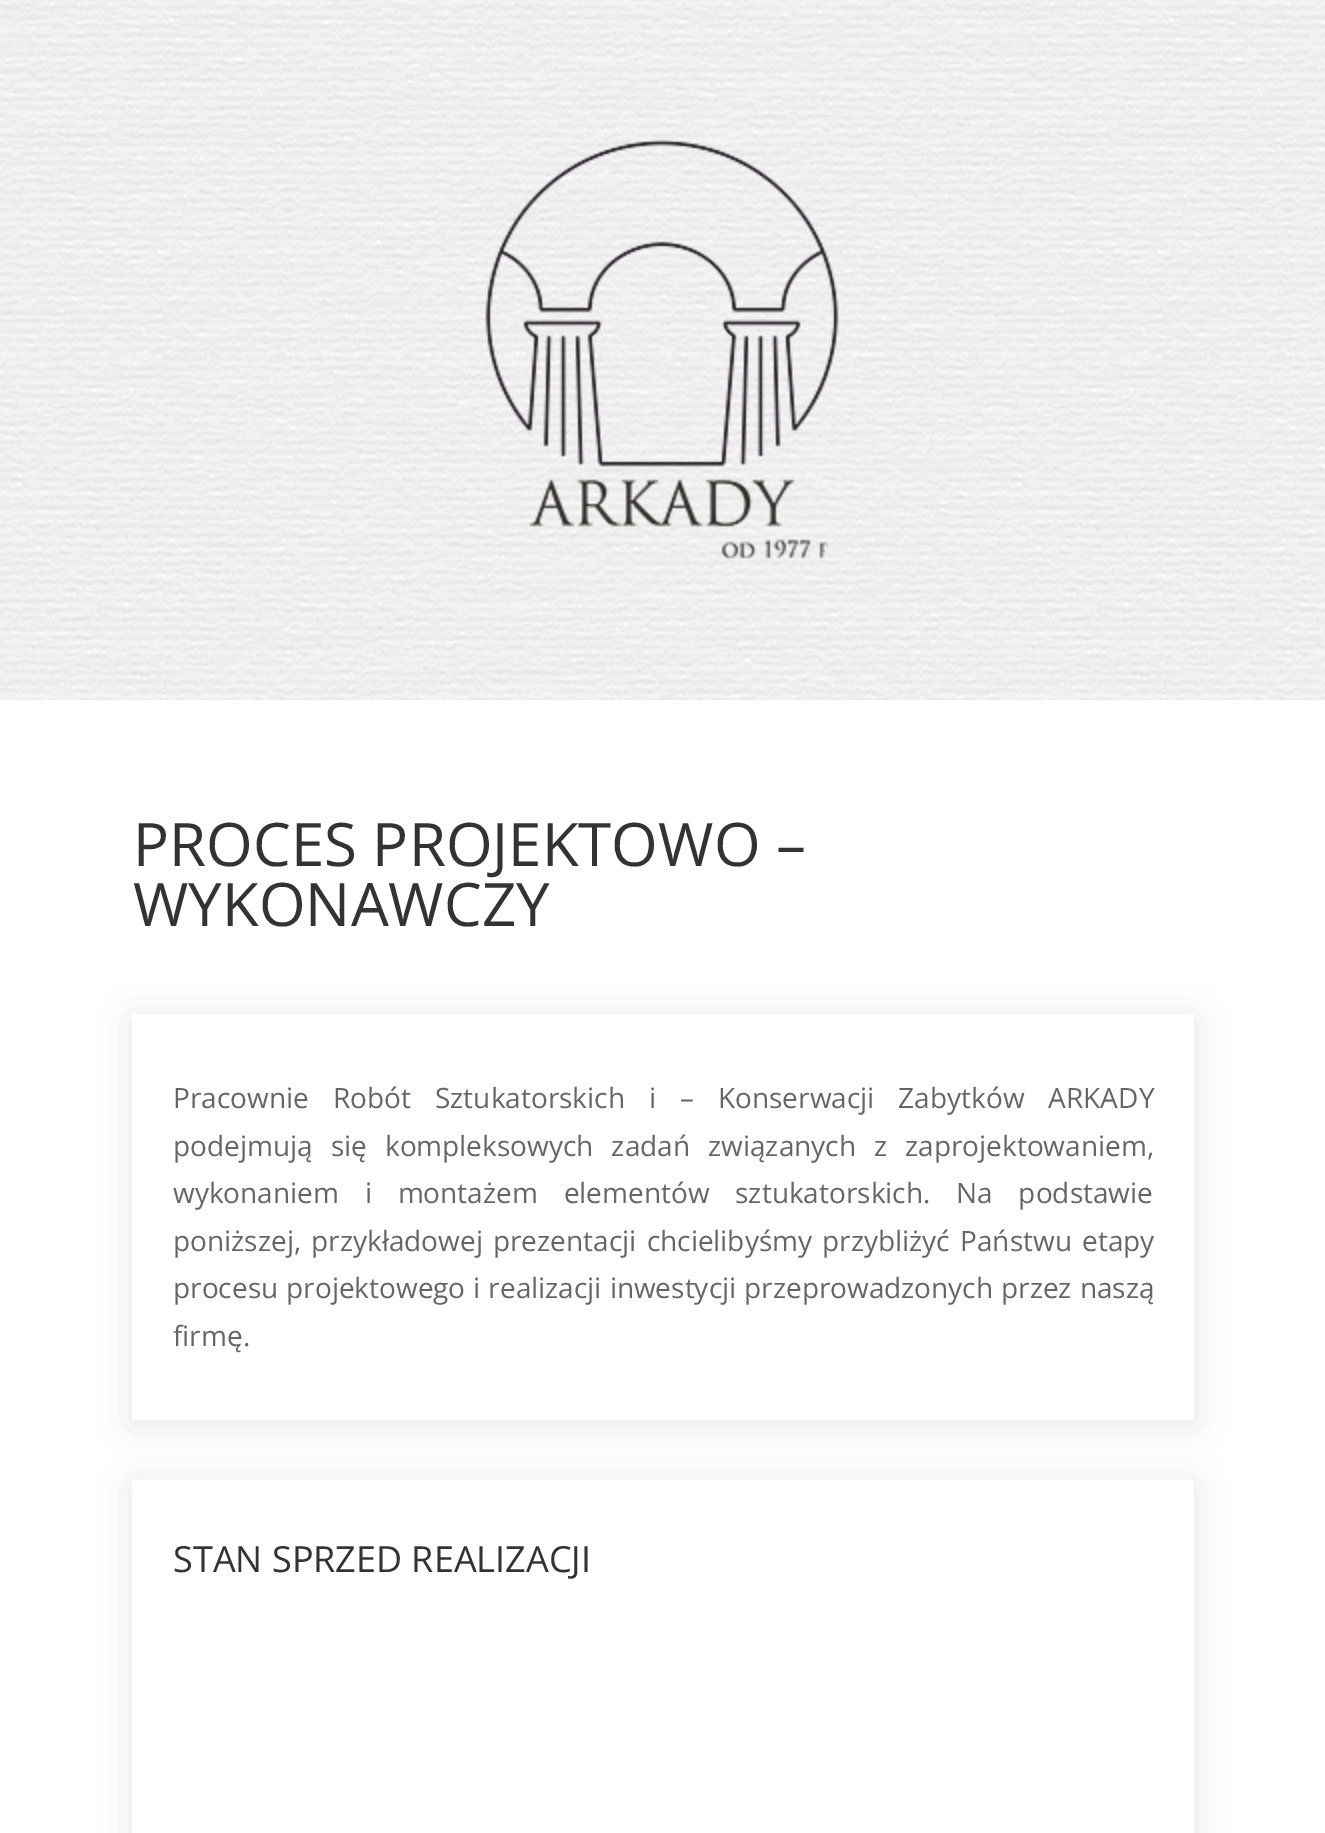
%!PS
<< /PageSize [1325 1833] /PageUsesTransparency true >> setpagedevice
/rgb { dup -16 bitshift 255 div exch dup -8 bitshift 255 and 255 div exch 255 and 255 div setrgbcolor } def
/font { [ exch dup neg 0 0 3 -1 roll 0 0 ] selectfont } def
/text { moveto show } def
/alpha { dup .setfillconstantalpha .setstrokeconstantalpha } def
/roundrect { 5 dict begin { /r /h /w /y /x } { exch def } forall
  x r add y moveto x w add y 2 copy h add r arct x w add y h add x 1 index r arct
  x y h add x y r arct x y 2 copy exch w add exch r arct closepath end } def
/shadow { 12 dict begin { /a /b /q /h /w /y /x } { exch def } forall gsave /was 0 def
  9 -2 -9 { dup b mul 4 div /e exch def 1 sub .425 mul 2.718 exch exp 1 add a .99 .min exch div /now exch def
    1 1 now sub 1 was sub div sub alpha /was now def
    w h .min e 2 mul add 0 gt { x e sub y e sub w e 2 mul add h e 2 mul add
      q e add b .6 mul add w h .min 2 div e add .min 0 .max roundrect fill } if } for grestore end } def
/picture { 5 dict begin { /h /w /y /x /name } { exch def } forall
  gsave x y translate w h scale
  w h 8 [w 0 0 h 0 0] name (r) file false 3 colorimage grestore end } def
0 .pushpdf14devicefilter
0 1833 translate 1 -1 scale
4 setmiterlimit
/s1 { /OpenSans-Regular 60 font 16#333333 rgb } def
/s2 { /OpenSans-Regular 28 font 16#666666 rgb } def
/s3 { /OpenSans-Regular 36 font 16#333333 rgb } def
16#FFFFFF rgb
0 0 1325 1833 rectfill
(pic1.raw) 0 0 1325 700 picture
(pic2.raw) 485 139 354 420 picture
s1
(PROCES PROJEKTOWO –) 133 866 text
(WYKONAWCZY) 133 926 text
gsave
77 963 moveto 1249 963 lineto 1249 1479 lineto 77 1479 lineto closepath 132 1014 moveto 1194 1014 lineto 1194 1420 lineto 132 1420 lineto closepath eoclip newpath
16#A8A8A8 rgb
132 1018 1062 406 0 18 0.3 shadow
grestore
/OpenSans-Regular 28 font
16#666666 rgb
173 1108 moveto 16.75 0 32 (Pracownie Robót Sztukatorskich i – Konserwacji Zabytków ARKADY) widthshow
173 1156 moveto 10.75 0 32 (podejmują się kompleksowych zadań związanych z zaprojektowaniem,) widthshow
173 1203 moveto 18.5 0 32 (wykonaniem i montażem elementów sztukatorskich.) widthshow
956 1203 moveto 18.5 0 32 (Na podstawie) widthshow
173 1251 moveto 3 0 32 (poniższej, przykładowej prezentacji chcielibyśmy przybliżyć Państwu etapy) widthshow
173 1298 moveto 0.75 0 32 (procesu projektowego i realizacji inwestycji przeprowadzonych przez naszą) widthshow
(firmę.) 173 1346 text
gsave
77 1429 moveto 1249 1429 lineto 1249 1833 lineto 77 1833 lineto closepath 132 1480 moveto 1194 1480 lineto 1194 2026 lineto 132 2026 lineto closepath eoclip newpath
16#A8A8A8 rgb
132 1484 1062 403 0 18 0.3 shadow
grestore
s3
(STAN SPRZED REALIZACJI) 173 1572 text
.poppdf14devicefilter showpage
